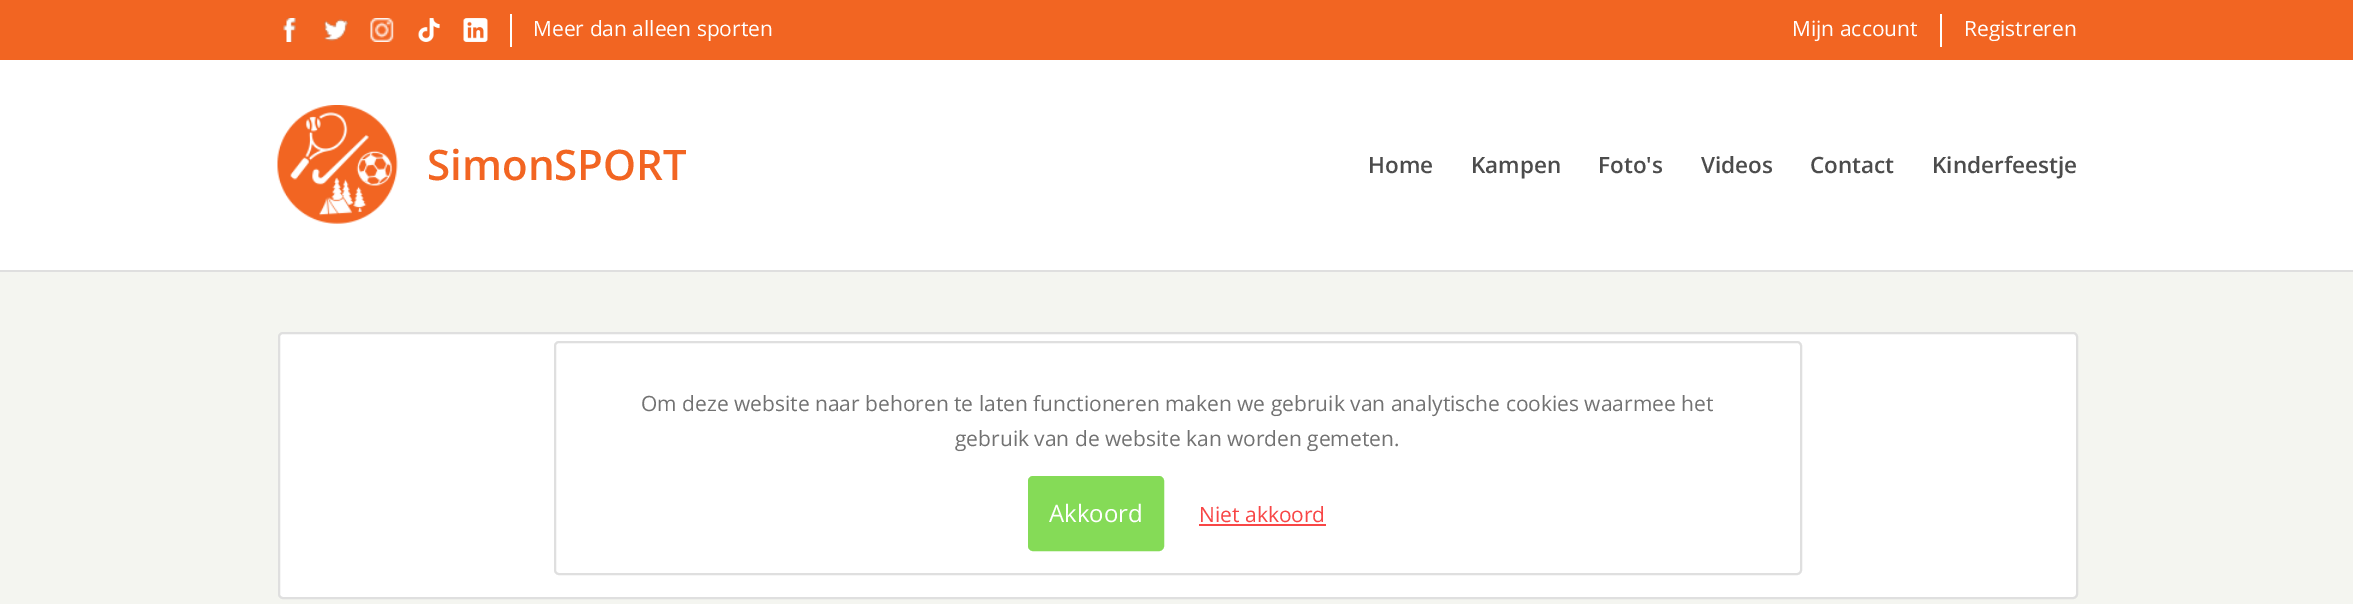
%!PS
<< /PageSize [2353 604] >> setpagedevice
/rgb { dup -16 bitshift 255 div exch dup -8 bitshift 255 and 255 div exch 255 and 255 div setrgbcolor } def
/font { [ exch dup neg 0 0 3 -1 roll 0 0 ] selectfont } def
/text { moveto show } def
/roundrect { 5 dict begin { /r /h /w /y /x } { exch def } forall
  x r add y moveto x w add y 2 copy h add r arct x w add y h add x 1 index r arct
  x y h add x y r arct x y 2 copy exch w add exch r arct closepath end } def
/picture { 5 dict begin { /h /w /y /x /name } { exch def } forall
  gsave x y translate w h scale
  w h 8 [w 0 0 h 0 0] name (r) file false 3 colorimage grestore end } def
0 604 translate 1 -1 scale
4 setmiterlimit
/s1 { /OpenSans-Regular 21 font 16#FFFFFF rgb } def
/s2 { /OpenSans-SemiBold 42 font 16#F26522 rgb } def
/s3 { /OpenSans-SemiBold 22.5 font 16#4C4C4C rgb } def
/s4 { /OpenSans-Regular 21 font 16#727272 rgb } def
/s5 { /OpenSans-Regular 24 font 16#FFFFFF rgb } def
/s6 { /OpenSans-Regular 21 font 16#F84646 rgb } def
16#F4F5F0 rgb
0 0 2353 604 rectfill
16#F26522 rgb
0 0 2353 60 rectfill
(pic1.raw) 283 18 13 24 picture
(pic2.raw) 324 19 24 22 picture
(pic3.raw) 370 18 24 24 picture
(pic4.raw) 418 18 22 24 picture
(pic5.raw) 463 18 25 24 picture
16#FFFFFF rgb
510 14 2 33 rectfill
s1
(Meer dan alleen sporten) 533 36 text
(Mijn account) 1792 36 text
1940 14 2 33 rectfill
(Registreren) 1964 36 text
0 60 2353 210 rectfill
16#DFDFDF rgb
0 270 2353 2 rectfill
(pic6.raw) 277 105 121 119 picture
s2
(SimonSPORT) 427 180 text
s3
(Home) 1368 173 text
(Kampen) 1471 173 text
(Foto's) 1598 173 text
(Videos) 1701 173 text
(Contact) 1810 173 text
(Kinderfeestje) 1932 173 text
16#FFFFFF rgb
279 333 1798 265 4 roundrect gsave fill grestore
16#DFDFDF rgb
2 setlinewidth
stroke
555 342 1246 232 4 roundrect stroke
s4
(Om deze website naar behoren te laten functioneren maken we gebruik van analytische cookies waarmee het) 641 411 text
(gebruik van de website kan worden gemeten.) 955 446 text
16#85DB57 rgb
1029 477 134 73 4 roundrect gsave fill grestore
stroke
s5
(Akkoord) 1049 522 text
s6
(Niet akkoord) 1199 522 text
1199 524 127 2 rectfill
showpage
